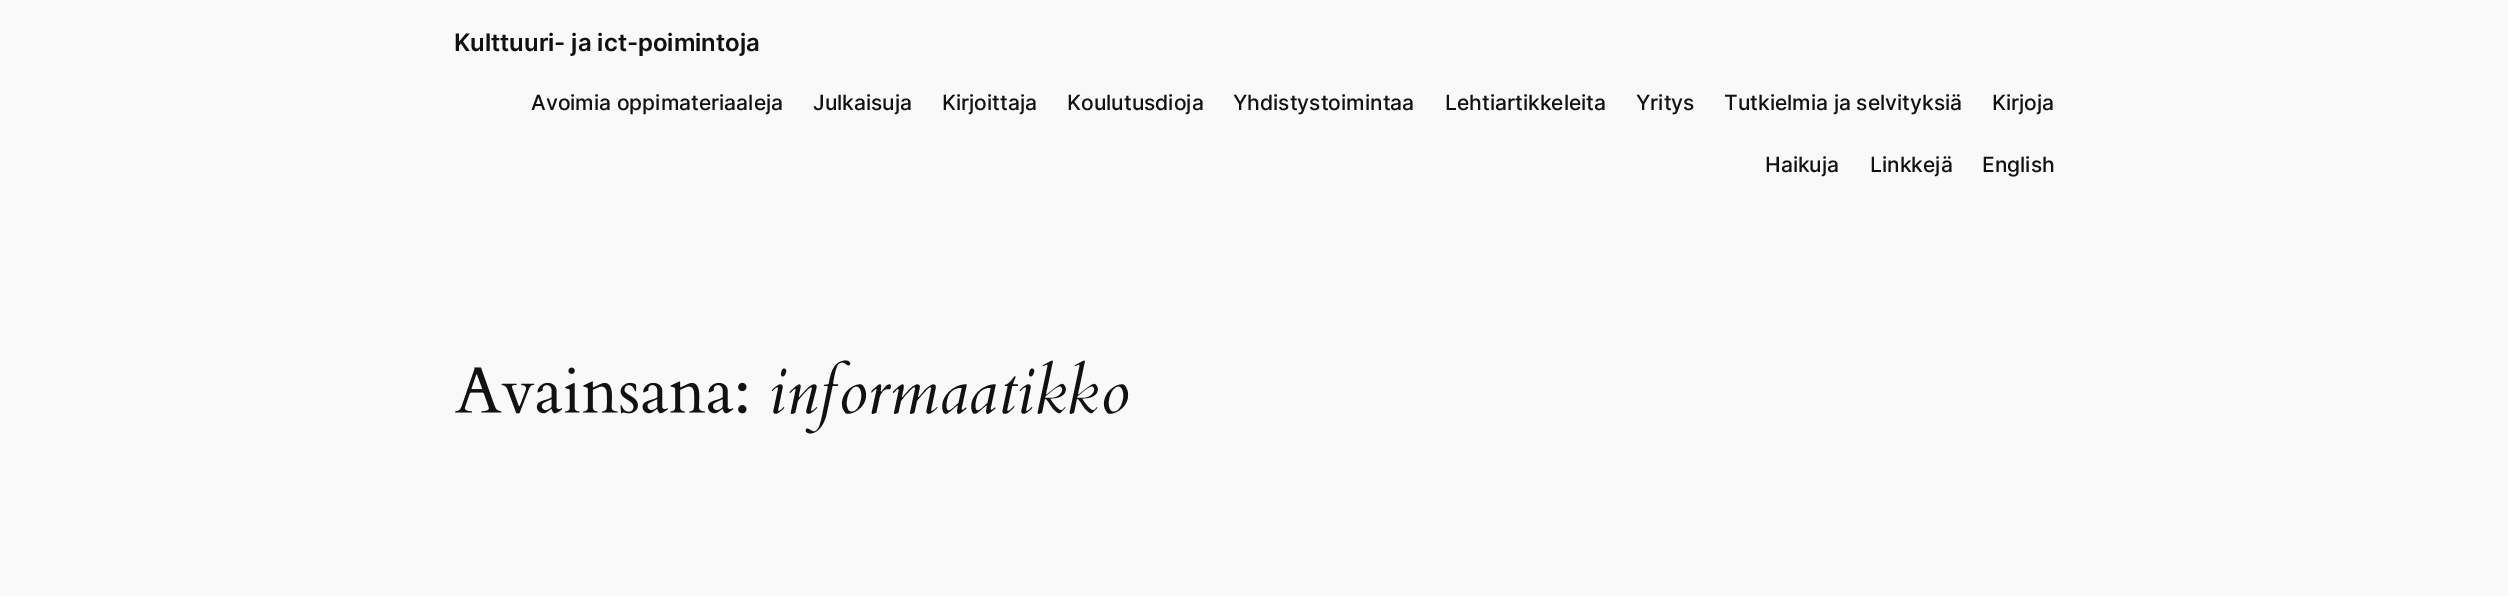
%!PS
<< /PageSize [2508 596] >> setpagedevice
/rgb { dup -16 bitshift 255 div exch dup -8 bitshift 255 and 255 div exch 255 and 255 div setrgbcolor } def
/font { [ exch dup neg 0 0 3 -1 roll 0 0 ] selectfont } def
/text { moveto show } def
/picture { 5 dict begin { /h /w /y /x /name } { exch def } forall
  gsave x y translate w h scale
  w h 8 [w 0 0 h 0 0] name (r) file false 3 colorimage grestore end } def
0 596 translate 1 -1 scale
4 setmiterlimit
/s1 { /Inter-SemiBold 24 font 16#111111 rgb } def
/s2 { /Inter-Medium 21 font 16#111111 rgb } def
/s3 { /Cardo-Italic 65.5 font 16#111111 rgb } def
16#F9F9F9 rgb
0 0 2508 596 rectfill
s1
(Kulttuuri- ja ict-poimintoja) 454 51 text
s2
(Avoimia oppimateriaaleja) 531 110 text
(Julkaisuja) 813 110 text
(Kirjoittaja) 942 110 text
(Koulutusdioja) 1067 110 text
(Yhdistystoimintaa) 1233 110 text
(Lehtiartikkeleita) 1445 110 text
(Yritys) 1636 110 text
(Tutkielmia ja selvityksiä) 1724 110 text
(Kirjoja) 1992 110 text
(Haikuja) 1765 172 text
(Linkkejä) 1870 172 text
(English) 1982 172 text
(pic1.raw) 455 367 292 47 picture
s3
(informaatikko) 768 413 text
showpage
